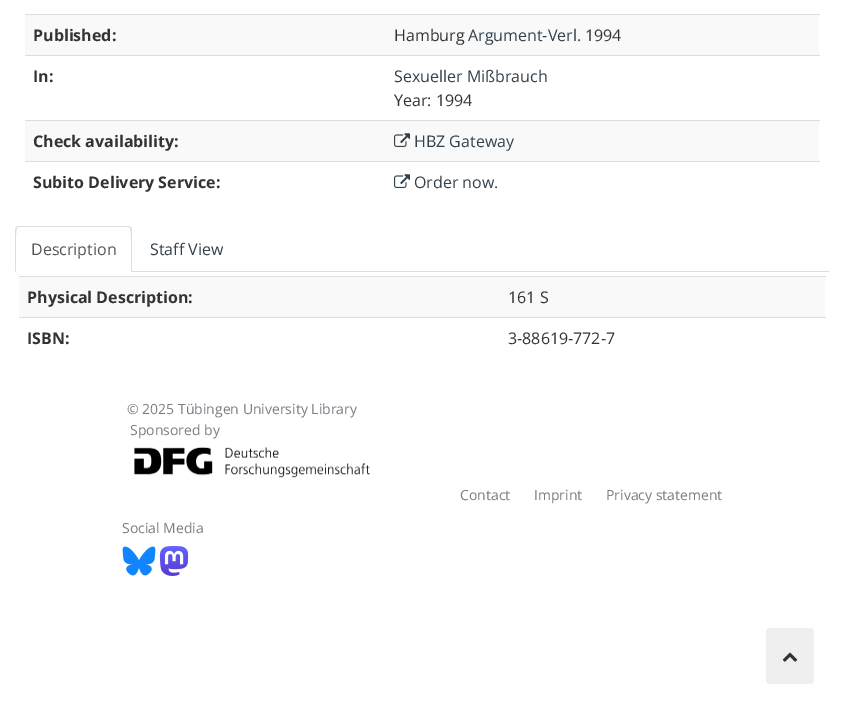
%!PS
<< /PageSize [844 704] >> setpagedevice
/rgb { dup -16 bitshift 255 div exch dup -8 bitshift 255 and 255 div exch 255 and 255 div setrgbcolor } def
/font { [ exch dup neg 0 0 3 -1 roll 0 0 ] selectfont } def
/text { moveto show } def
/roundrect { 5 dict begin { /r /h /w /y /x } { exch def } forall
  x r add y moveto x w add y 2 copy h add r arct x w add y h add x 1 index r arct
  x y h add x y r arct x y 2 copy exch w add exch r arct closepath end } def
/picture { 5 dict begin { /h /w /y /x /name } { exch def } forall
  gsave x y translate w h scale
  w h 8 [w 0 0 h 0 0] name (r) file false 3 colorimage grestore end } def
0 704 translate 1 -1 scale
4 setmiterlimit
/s1 { /OpenSans-Bold 16 font 16#333333 rgb } def
/s2 { /OpenSans-Regular 16 font 16#333333 rgb } def
/s3 { /OpenSans-Regular 16 font 16#32414B rgb } def
/s4 { /OpenSans-Regular 16 font 16#555555 rgb } def
/s5 { /OpenSans-Regular 14 font 16#7B7D84 rgb } def
16#FFFFFF rgb
0 0 844 704 rectfill
16#F9F9F9 rgb
25 15 794 40 rectfill
s1
(Published:) 33 41 text
16#DDDDDD rgb
25 14 795 1 rectfill
s2
(Hamburg) 394 41 text
s3
(Argument-Verl.) 468 41 text
s2
(1994) 585 41 text
s1
(In:) 33 82 text
16#DDDDDD rgb
25 55 795 1 rectfill
s3
(Sexueller Mißbrauch) 394 82 text
s2
(Year: 1994) 394 106 text
16#F9F9F9 rgb
25 121 794 40 rectfill
s1
(Check availability:) 33 147 text
16#DDDDDD rgb
25 120 795 1 rectfill
(pic1.raw) 394 133 16 14 picture
s3
(HBZ Gateway) 414 147 text
s1
(Subito Delivery Service:) 33 188 text
16#DDDDDD rgb
25 161 795 1 rectfill
(pic2.raw) 394 174 16 14 picture
s3
(Order now.) 414 188 text
16#DDDDDD rgb
132 271 697 1 rectfill
19 226 moveto 16 227 lineto 17 228 lineto 19 227 lineto 128 227 lineto 130 228 lineto 131 227 lineto 128 226 lineto closepath fill
132 272 moveto 132 230 lineto 132 229 132 228 131 227 curveto 130 228 lineto 132 230 131 266 131 271 curveto closepath fill
15 272 moveto 16 271 lineto 16 266 15 230 17 228 curveto 16 227 lineto 15 230 lineto closepath fill
s4
(Description) 31 255 text
s3
(Staff View) 150 255 text
16#F9F9F9 rgb
19 277 806 40 rectfill
s1
(Physical Description:) 27 303 text
16#DDDDDD rgb
19 276 807 1 rectfill
s2
(161 S) 508 303 text
s1
(ISBN:) 27 344 text
16#DDDDDD rgb
19 317 807 1 rectfill
s2
(3-88619-772-7) 508 344 text
s5
(© 2025 Tübingen University Library) 127 414 text
(Sponsored by) 130 435 text
(pic3.raw) 134 446 236 32 picture
(Contact) 460 500 text
(Imprint) 534 500 text
(Privacy statement) 606 500 text
(Social Media) 122 533 text
(pic4.raw) 122 546 34 30 picture
(pic5.raw) 159 546 30 30 picture
16#EFEFEF rgb
766 628 48 56 4 roundrect fill
(pic6.raw) 782 652 16 10 picture
showpage
